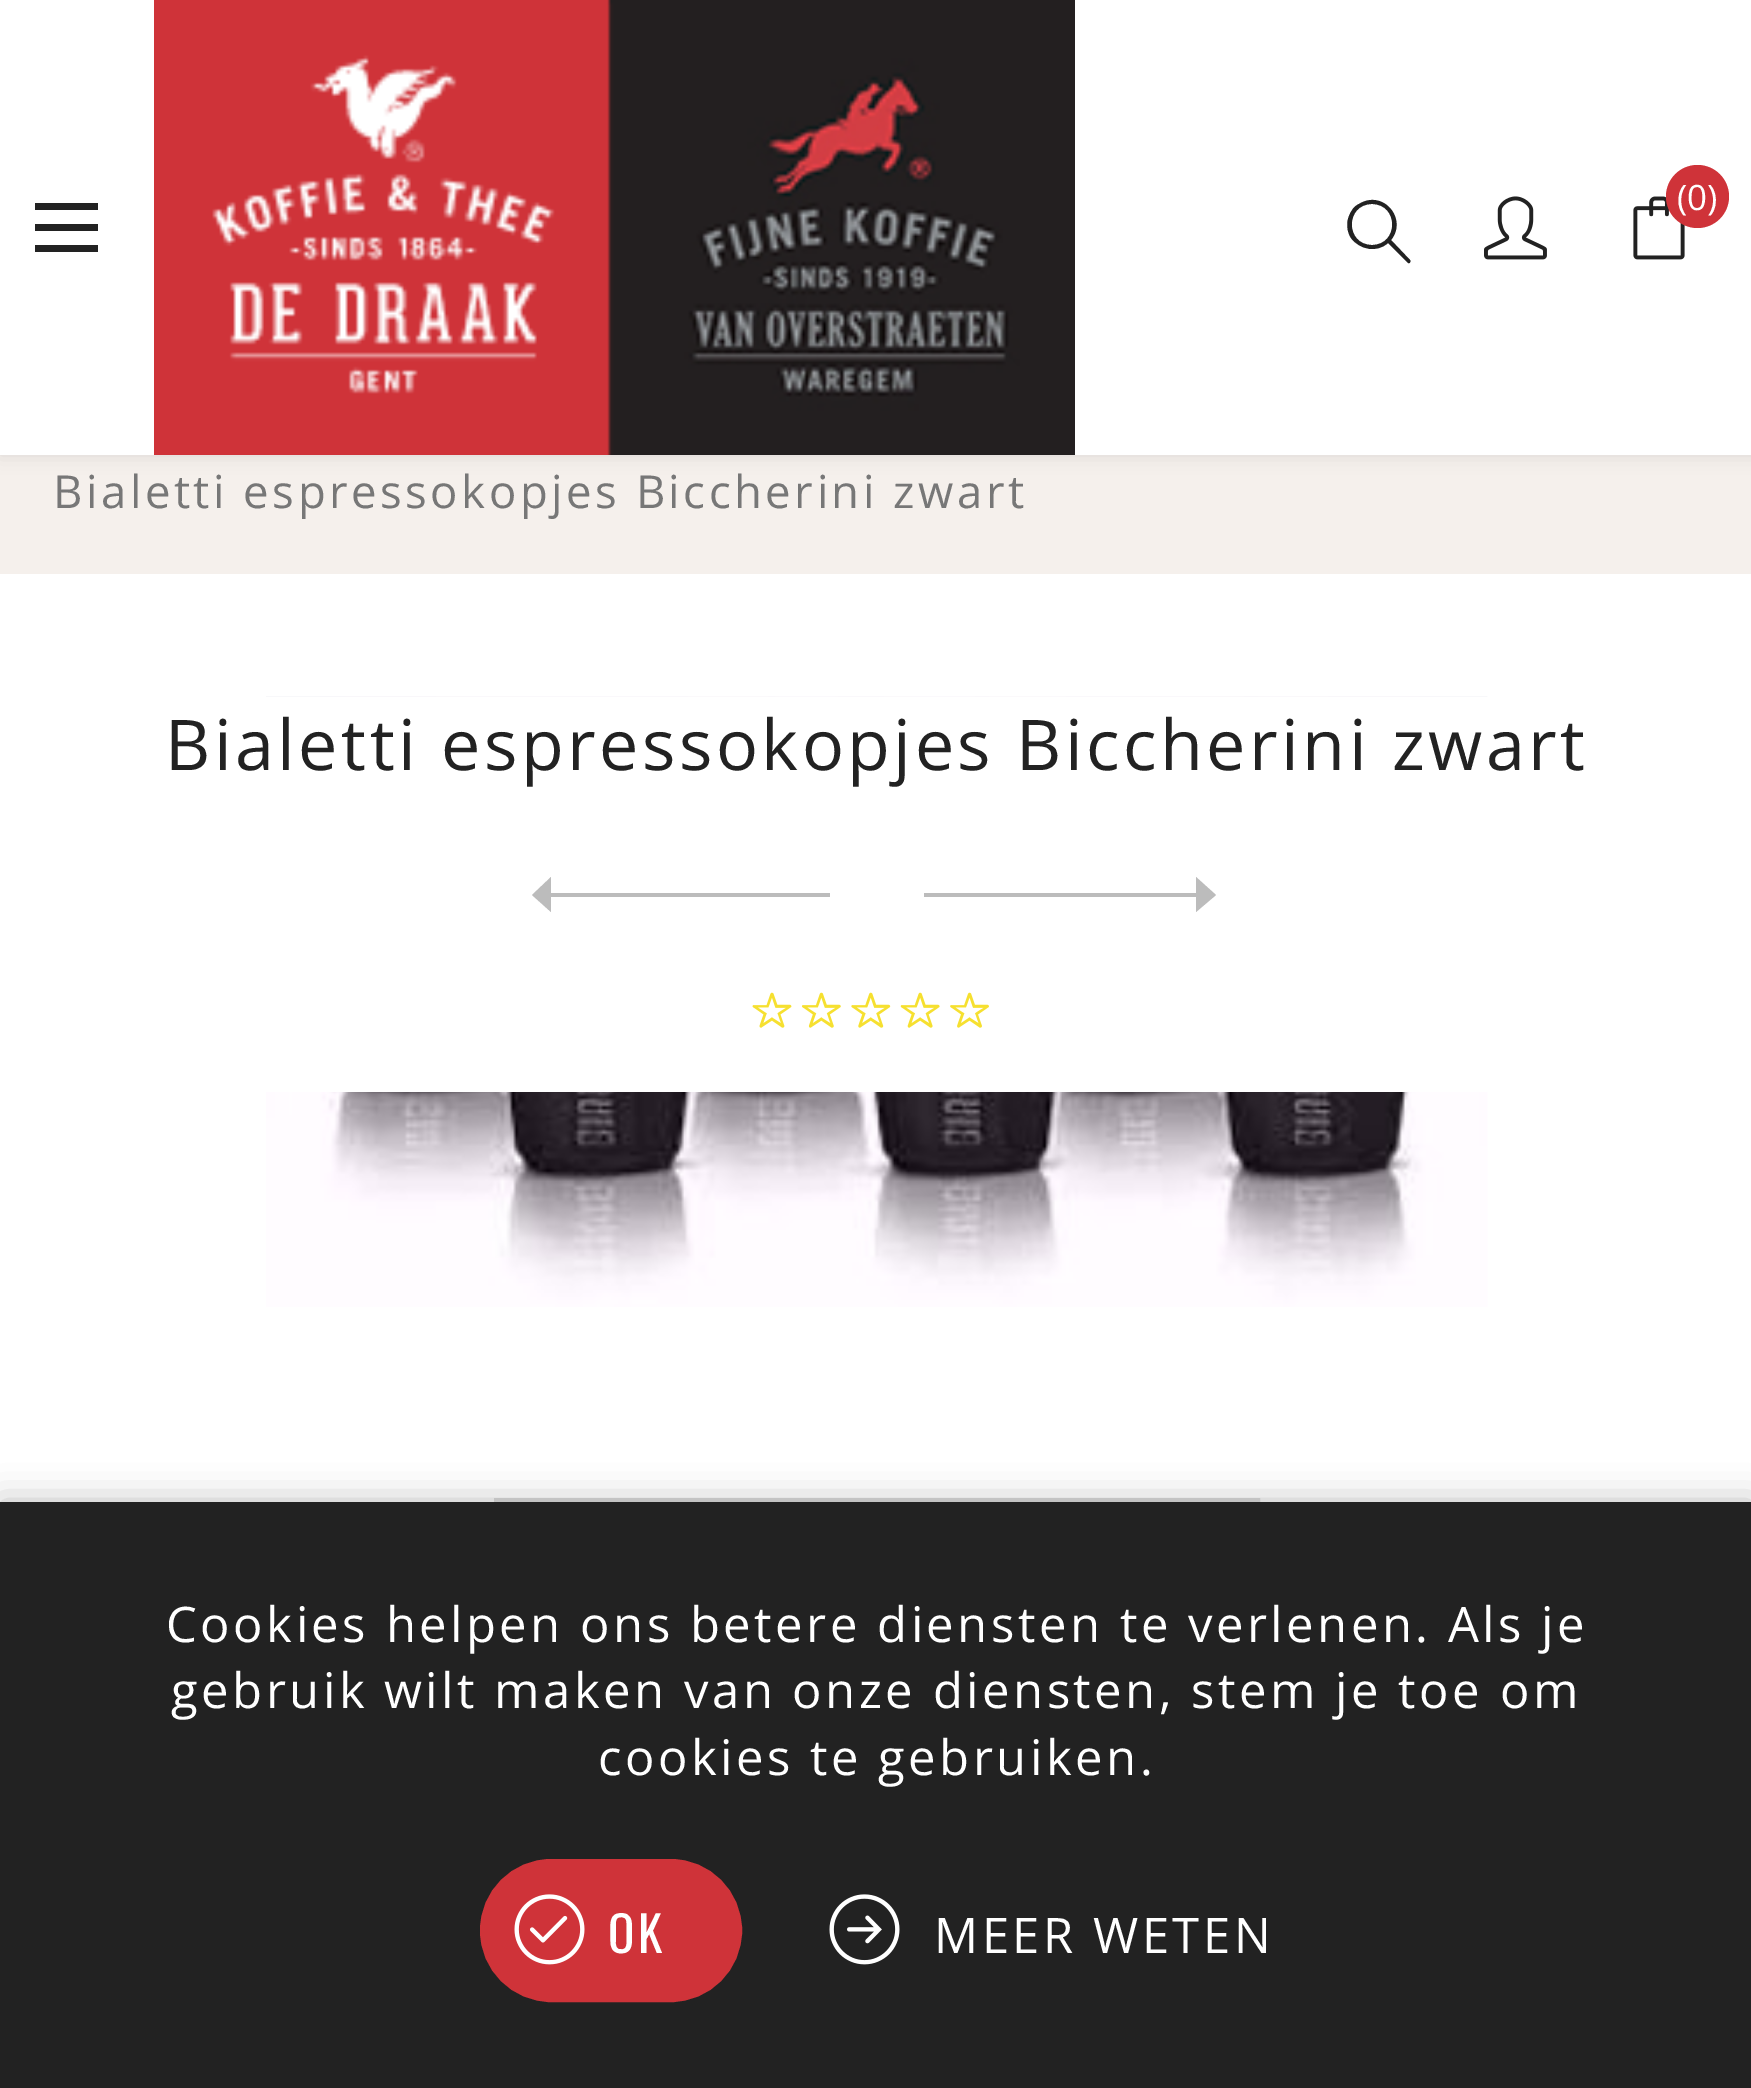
%!PS
<< /PageSize [1751 2088] /PageUsesTransparency true >> setpagedevice
/rgb { dup -16 bitshift 255 div exch dup -8 bitshift 255 and 255 div exch 255 and 255 div setrgbcolor } def
/font { [ exch dup neg 0 0 3 -1 roll 0 0 ] selectfont } def
/text { moveto show } def
/alpha { dup .setfillconstantalpha .setstrokeconstantalpha } def
/circle { newpath 0 360 arc closepath } def
/roundrect { 5 dict begin { /r /h /w /y /x } { exch def } forall
  x r add y moveto x w add y 2 copy h add r arct x w add y h add x 1 index r arct
  x y h add x y r arct x y 2 copy exch w add exch r arct closepath end } def
/shadow { 12 dict begin { /a /b /q /h /w /y /x } { exch def } forall gsave /was 0 def
  9 -2 -9 { dup b mul 4 div /e exch def 1 sub .425 mul 2.718 exch exp 1 add a .99 .min exch div /now exch def
    1 1 now sub 1 was sub div sub alpha /was now def
    w h .min e 2 mul add 0 gt { x e sub y e sub w e 2 mul add h e 2 mul add
      q e add b .6 mul add w h .min 2 div e add .min 0 .max roundrect fill } if } for grestore end } def
/picture { 5 dict begin { /h /w /y /x /name } { exch def } forall
  gsave x y translate w h scale
  w h 8 [w 0 0 h 0 0] name (r) file false 3 colorimage grestore end } def
0 .pushpdf14devicefilter
0 2088 translate 1 -1 scale
4 setmiterlimit
/s1 { /OpenSans-Regular 35 font 16#FFFFFF rgb } def
16#FFFFFF rgb
0 0 1751 2088 rectfill
16#F5F0EC rgb
0 455 1751 119 rectfill
16#000000 rgb
0 0 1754 455 0 9 0.1 shadow
16#FFFFFF rgb
0 0 1751 455 rectfill
16#222222 rgb
35 203 moveto 35 210 lineto 98 210 lineto 98 203 lineto closepath 35 231 moveto 98 231 lineto 98 224 lineto 35 224 lineto closepath 35 252 moveto 98 252 lineto 98 245 lineto 35 245 lineto closepath fill
(pic1.raw) 154 0 921 455 picture
1410 260 moveto 1391 240 lineto 1408 219 1383 189 1359 204 curveto 1354 206 1351 211 1349 216 curveto 1346 223 1347 232 1351 238 curveto 1360 250 1377 253 1388 243 curveto 1408 263 lineto 1410 264 1411 261 1410 260 curveto closepath 1372 245 moveto 1345 245 1345 204 1372 204 curveto 1399 204 1399 245 1372 245 curveto closepath fill
(pic2.raw) 1484 196 63 64 picture
(pic3.raw) 1633 196 52 64 picture
16#CF3339 rgb
1697.5 196.5 31.5 circle fill
s1
(\(0\)) 1677 210 text
/OpenSans-Regular 45.5 font
16#777777 rgb
53 508 moveto 3.5 0 (Bialetti espressokopjes Biccherini zwart) ashow
(pic4.raw) 266 696 1222 611 picture
16#FFFFFF rgb
266 697 1222 395 rectfill
/OpenSans-Regular 70 font
16#222222 rgb
165 770 moveto 3.5 0 (Bialetti espressokopjes Biccherini zwart) ashow
gsave
532 861 298 70 rectclip
16#BCBCBC rgb
532 895 moveto 551 877 lineto 551 893 lineto 859 893 lineto 859 897 lineto 551 897 lineto 551 912 lineto closepath fill
grestore
gsave
924 861 298 70 rectclip
16#BCBCBC rgb
1216 895 moveto 1196 912 lineto 1196 897 lineto 889 897 lineto 889 893 lineto 1196 893 lineto 1196 877 lineto closepath fill
grestore
(pic5.raw) 752 992 237 36 picture
16#DFDFDF rgb
4 setlinewidth
496 1500 762 143 rectstroke
16#000000 rgb
0 1502 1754 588 0 17.5 0.25 shadow
16#222222 rgb
0 1502 1751 586 rectfill
/OpenSans-Regular 49 font
16#FFFFFF rgb
166 1642 moveto 3.5 0 (Cookies helpen ons betere diensten te verlenen. Als je) ashow
171 1708 moveto 3.5 0 (gebruik wilt maken van onze diensten, stem je toe om) ashow
598 1775 moveto 3.5 0 (cookies te gebruiken.) ashow
16#CF3339 rgb
483.5 1862.5 255 136 68 roundrect gsave fill grestore
7 setlinewidth
stroke
(pic6.raw) 514 1894 71 71 picture
/Oswald-Regular 49 font
16#FFFFFF rgb
608 1953 moveto 3.5 0 (OK) ashow
(pic7.raw) 829 1894 71 71 picture
/OpenSans-Regular 49 font
934 1953 moveto 3.5 0 (MEER WETEN) ashow
.poppdf14devicefilter showpage
